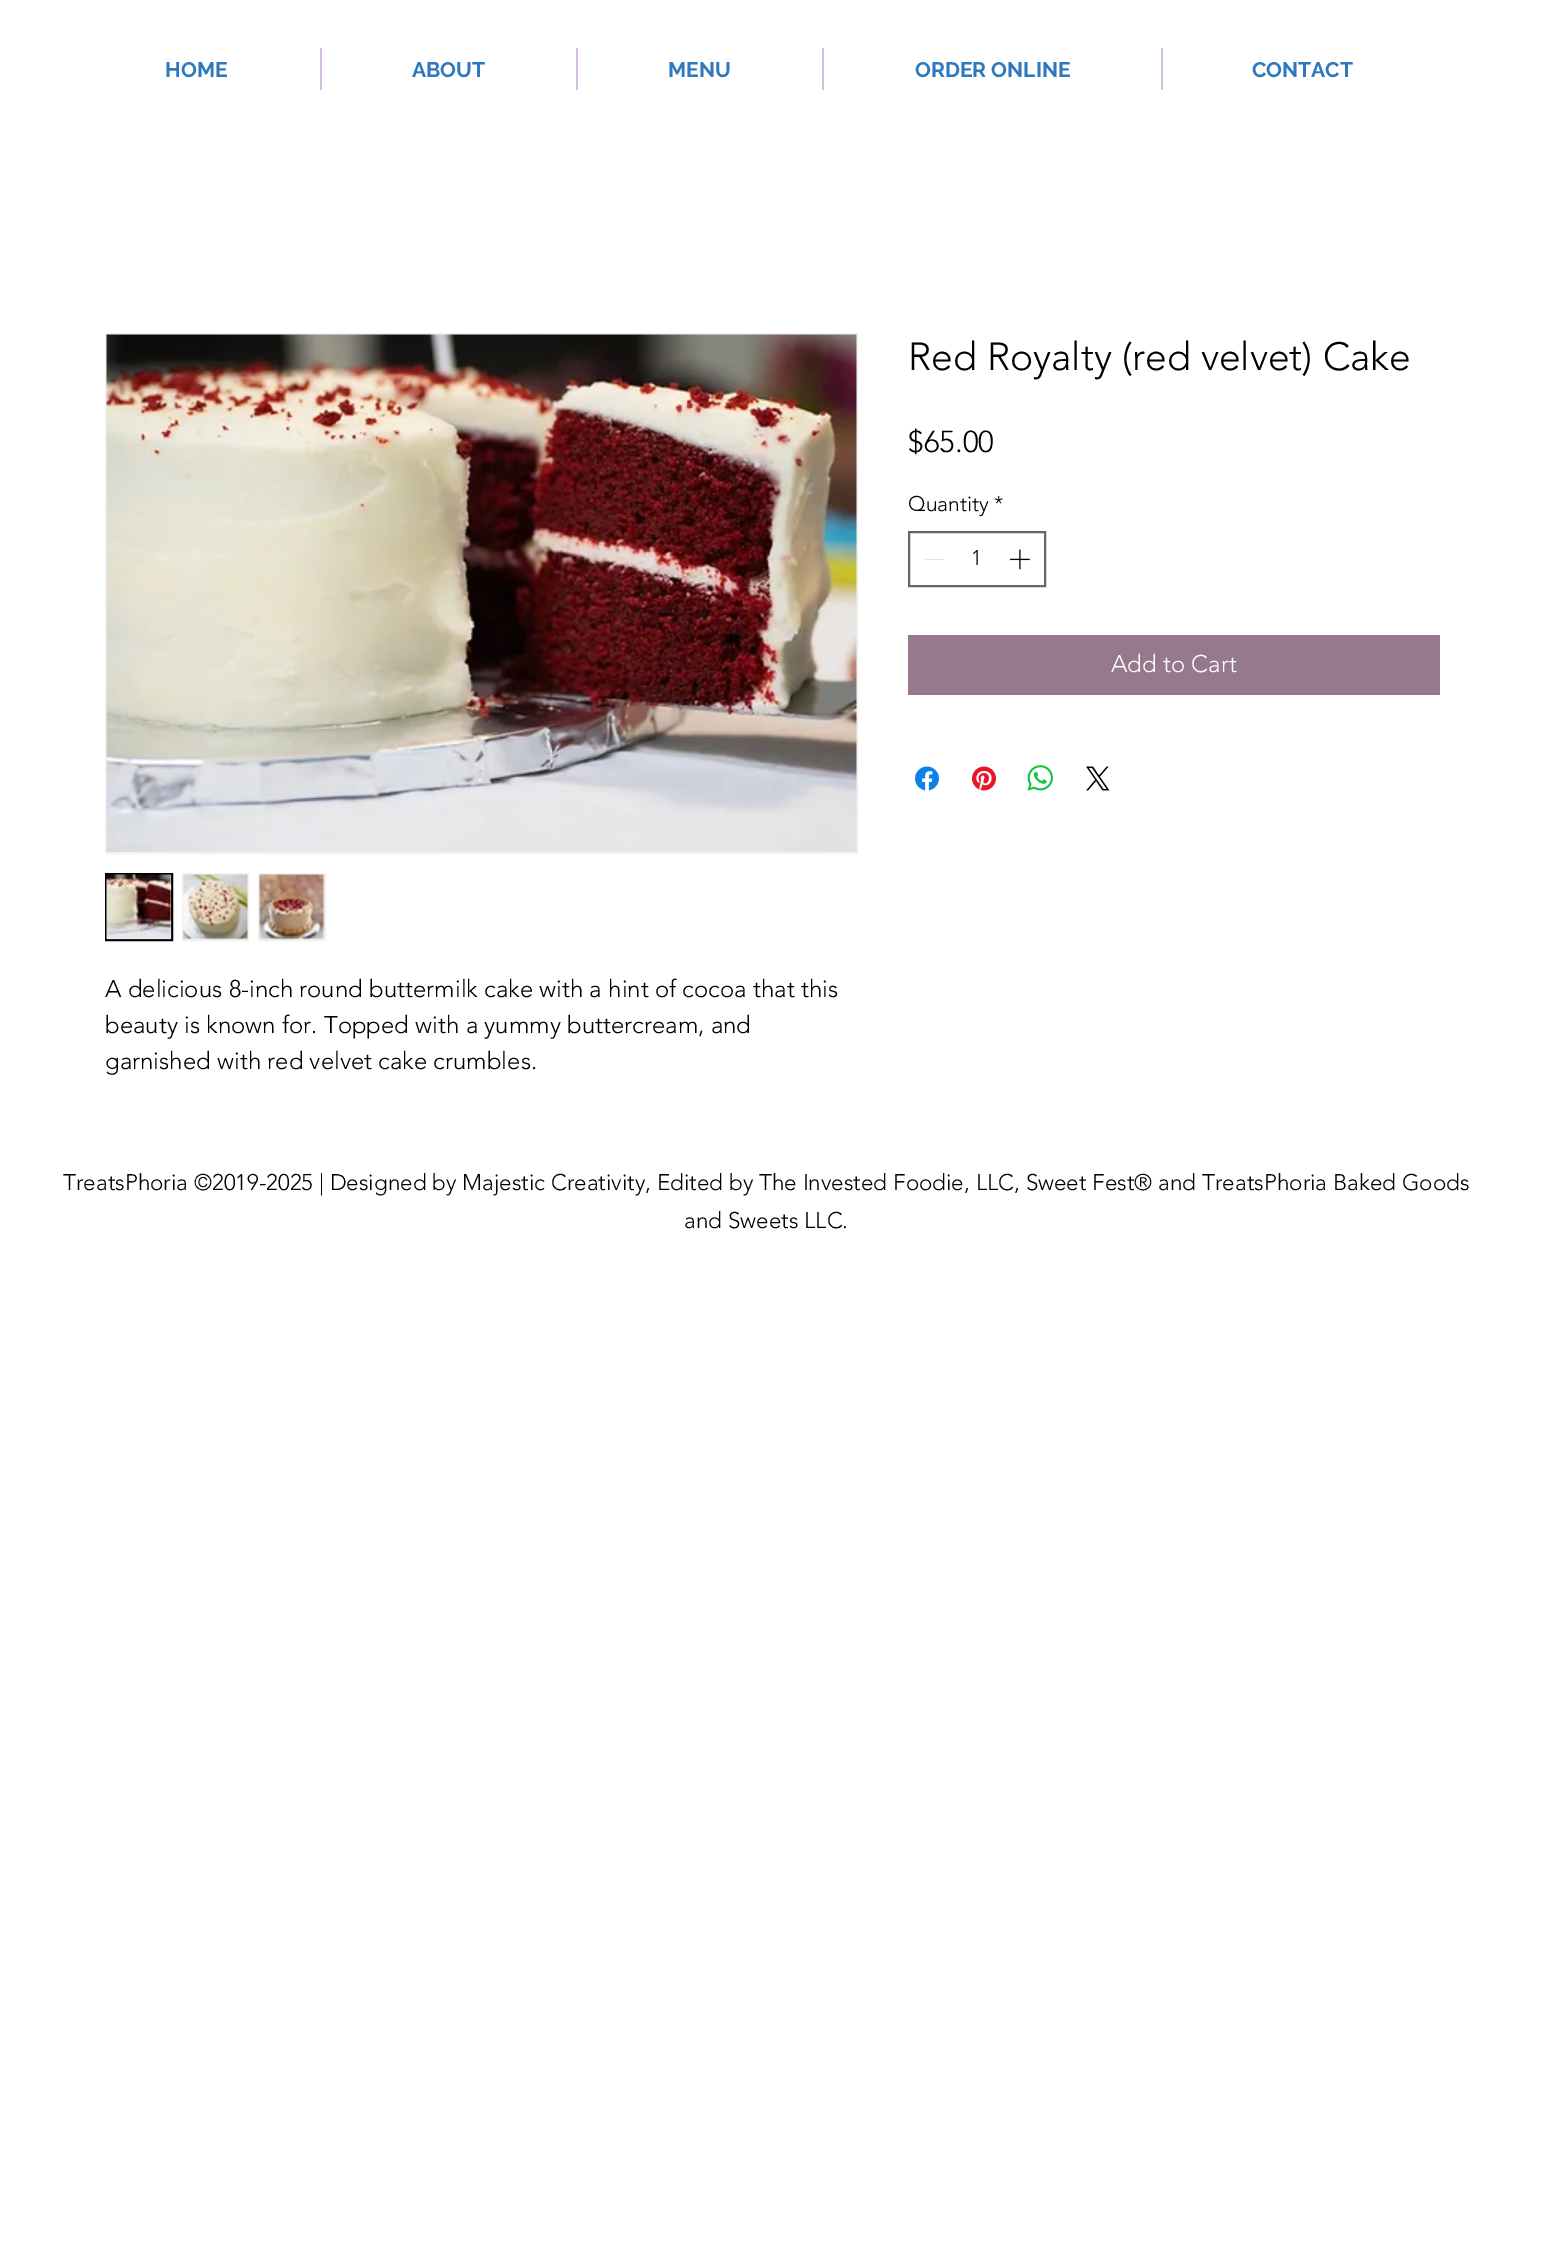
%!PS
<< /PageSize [1544 2264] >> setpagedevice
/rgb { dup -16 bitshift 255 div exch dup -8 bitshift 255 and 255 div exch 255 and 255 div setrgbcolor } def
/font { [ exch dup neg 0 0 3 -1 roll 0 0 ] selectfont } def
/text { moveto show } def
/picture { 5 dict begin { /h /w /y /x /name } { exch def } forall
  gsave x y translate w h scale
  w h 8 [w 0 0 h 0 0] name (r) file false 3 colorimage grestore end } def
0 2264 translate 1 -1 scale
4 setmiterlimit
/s1 { /Raleway-Bold 21 font 16#3078BE rgb } def
/s2 { /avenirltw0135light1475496-Light 39 font 16#000000 rgb } def
/s3 { /avenirltw0135light1475496-Light 30 font 16#000000 rgb } def
/s4 { /avenirltw0135light1475496-Light 21 font 16#000000 rgb } def
/s5 { /avenirltw0135light1475496-Light 24 font 16#FFFFFF rgb } def
/s6 { /avenirltw0135light1475496-Light 24 font 16#000000 rgb } def
/s7 { /avenirltw0135light1475496-Light 22.5 font 16#000000 rgb } def
16#FFFFFF rgb
0 0 1544 2264 rectfill
s1
(HOME) 165 77 text
16#D8BDE2 rgb
320 48 2 42 rectfill
s1
(ABOUT) 412 77 text
16#D8BDE2 rgb
576 48 2 42 rectfill
s1
(MENU) 668 77 text
16#D8BDE2 rgb
822 48 2 42 rectfill
s1
(ORDER ONLINE) 915 77 text
16#D8BDE2 rgb
1161 48 2 42 rectfill
s1
(CONTACT) 1252 77 text
s2
(Red Royalty \(red velvet\) Cake) 908 370 text
s3
($65.00) 908 452 text
s4
(Quantity) 908 511 text
(*) 994 511 text
16#666666 rgb
2 setlinewidth
909 532 136 54 rectstroke
16#E3E3E3 rgb
925 559 19 1 rectfill
s4
(1) 971 565 text
(pic1.raw) 1010 549 20 21 picture
16#97798E rgb
908 635 532 60 rectfill
s5
(Add to Cart) 1111 672 text
(pic2.raw) 915 766 24 25 picture
(pic3.raw) 972 766 24 25 picture
(pic4.raw) 1027 765 26 26 picture
(pic5.raw) 1086 766 24 25 picture
16#F2F2F2 rgb
106 334 751 519 rectstroke
(pic6.raw) 106 334 751 518 picture
16#000000 rgb
106 874 66 66 rectstroke
(pic7.raw) 106 874 66 66 picture
16#F2F2F2 rgb
183 874 65 66 rectstroke
(pic8.raw) 182 874 66 66 picture
259 874 66 66 rectstroke
(pic9.raw) 259 874 66 66 picture
s6
(A delicious 8-inch round buttermilk cake with a hint of cocoa that this) 105 997 text
(beauty is known for. Topped with a yummy buttercream, and) 105 1033 text
(garnished with red velvet cake crumbles.) 105 1069 text
s7
(TreatsPhoria ©2019-2025 | Designed by Majestic Creativity, Edited by The Invested Foodie, LLC, Sweet Fest® and TreatsPhoria Baked Goods) 63 1190 text
(and Sweets LLC.) 684 1228 text
showpage
